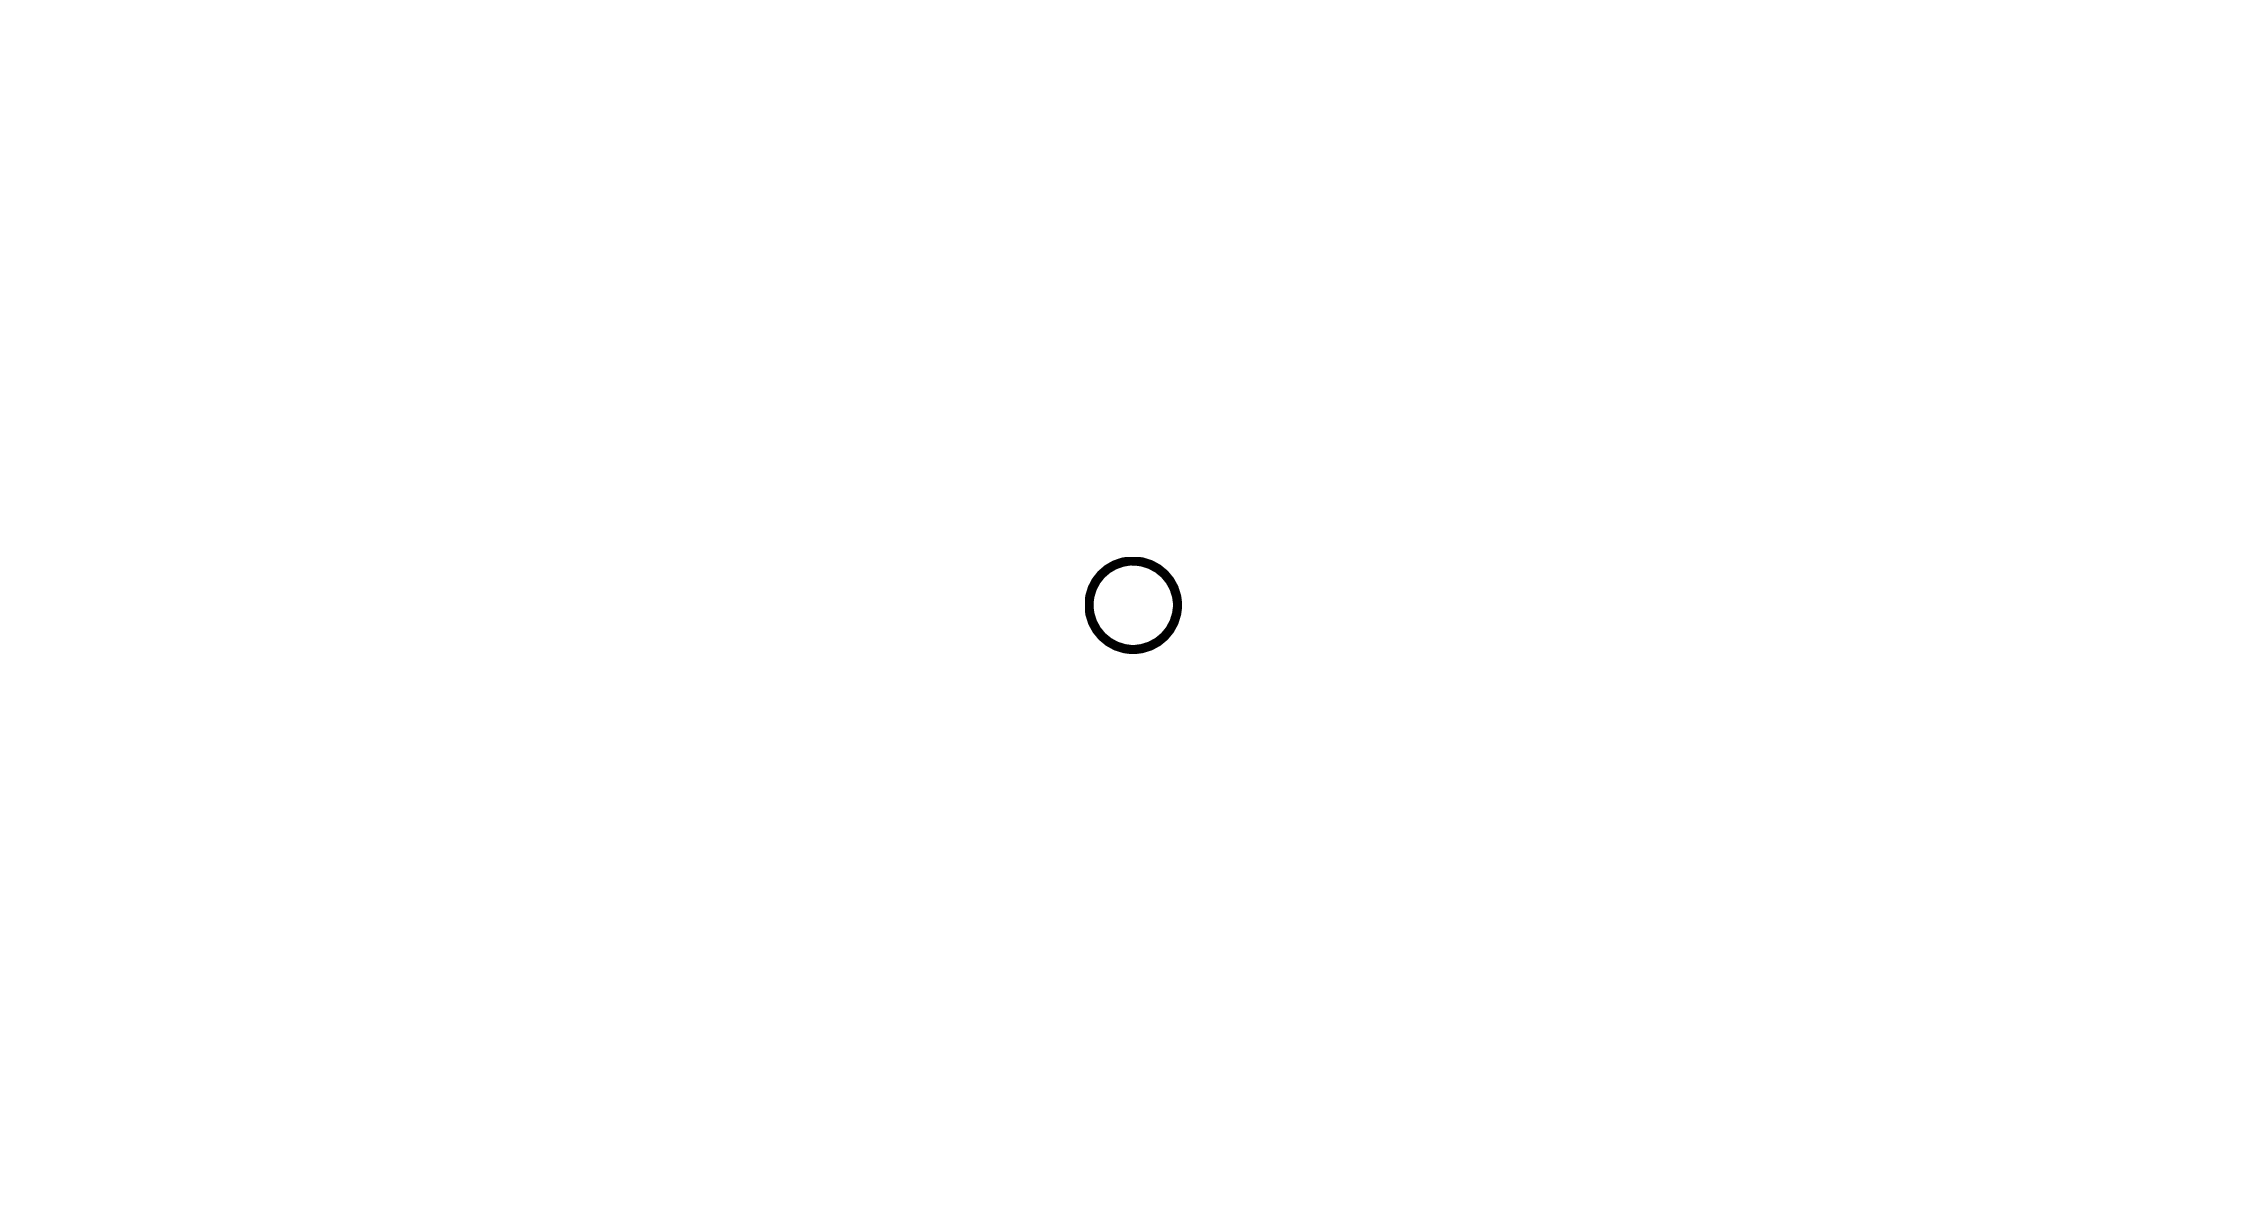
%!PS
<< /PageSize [2264 1211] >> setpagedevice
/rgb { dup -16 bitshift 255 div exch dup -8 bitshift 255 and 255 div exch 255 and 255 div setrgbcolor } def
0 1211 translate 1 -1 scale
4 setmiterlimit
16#FFFFFF rgb
0 0 2264 1211 rectfill
gsave
1085 557 97 97 rectclip
16#000000 rgb
8.9 setlinewidth
1 setlinecap
1133 561 moveto 1157.5 561 1177.5 581 1177.5 605 curveto 1177.5 629.5 1157.5 649.5 1133 649.5 curveto 1109 649.5 1089 629.5 1089 605 curveto 1089 581.5 1107.5 562 1131 561 curveto stroke
grestore
showpage
